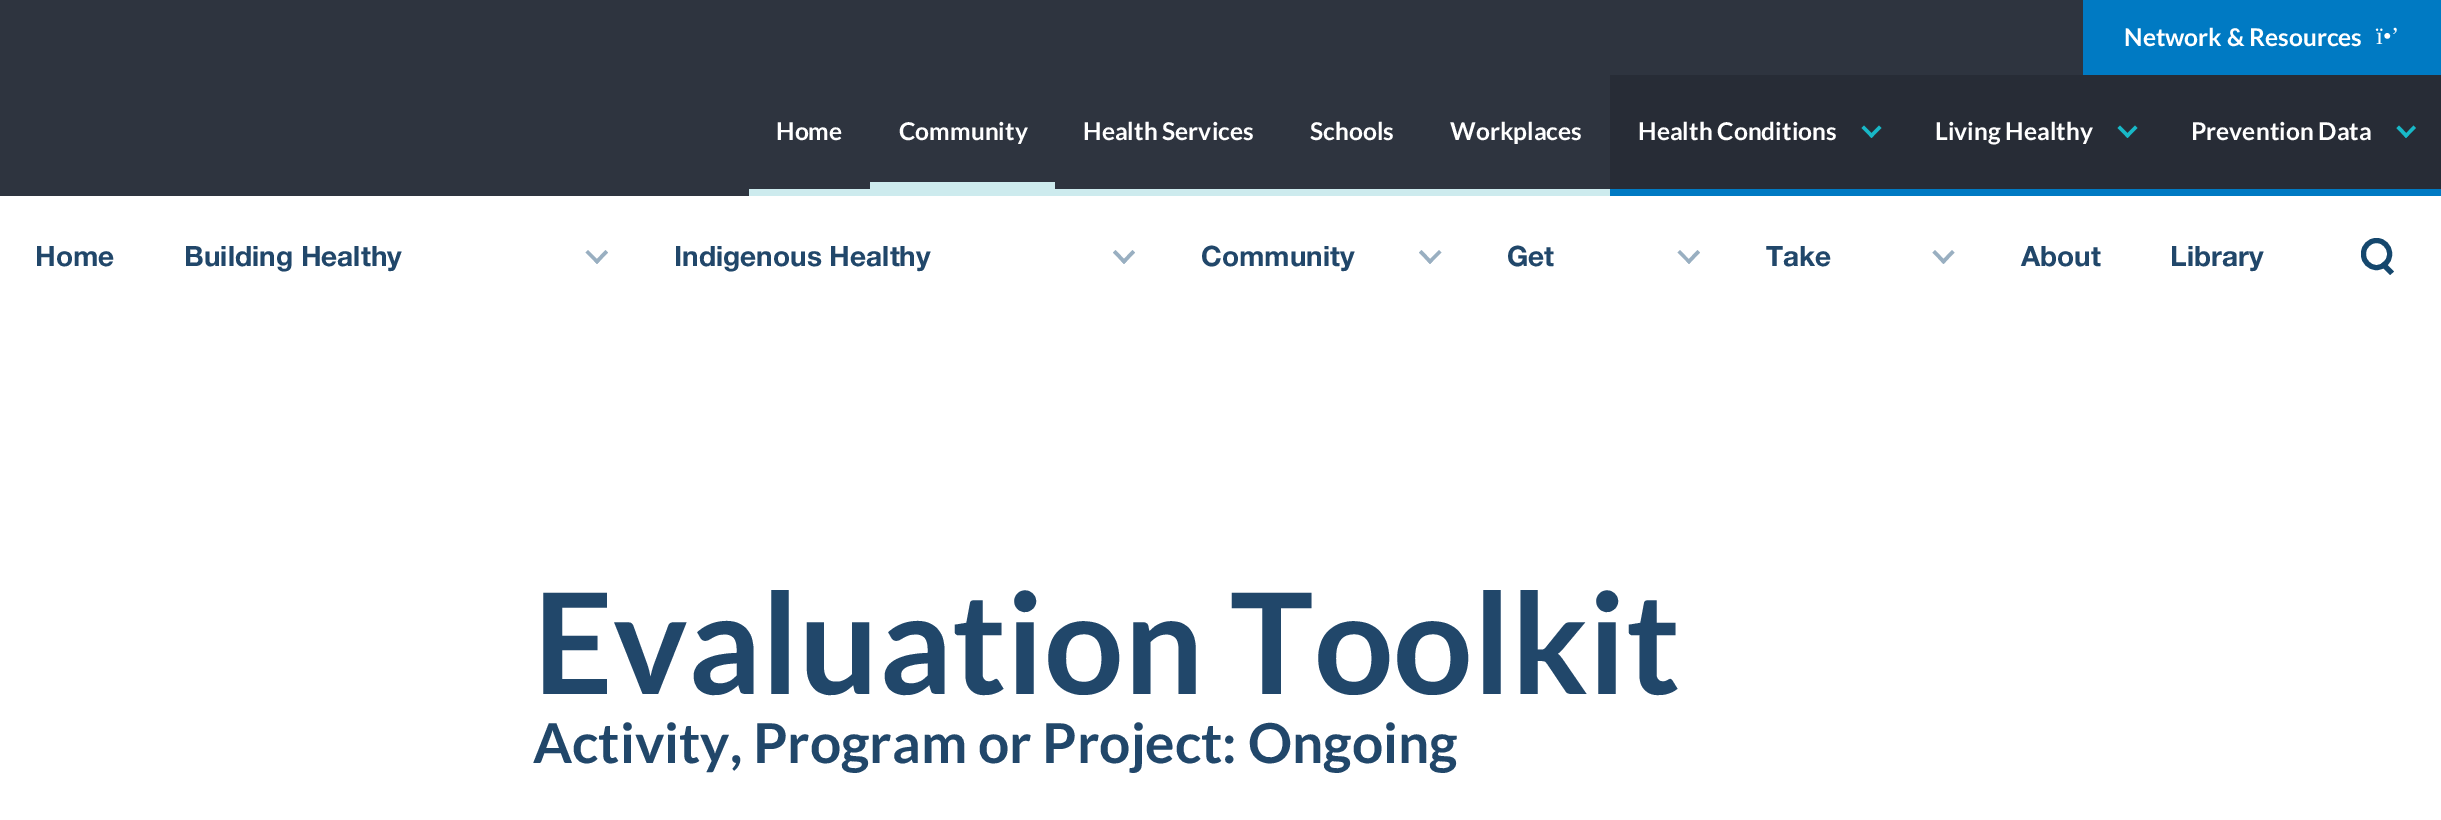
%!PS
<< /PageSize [2441 820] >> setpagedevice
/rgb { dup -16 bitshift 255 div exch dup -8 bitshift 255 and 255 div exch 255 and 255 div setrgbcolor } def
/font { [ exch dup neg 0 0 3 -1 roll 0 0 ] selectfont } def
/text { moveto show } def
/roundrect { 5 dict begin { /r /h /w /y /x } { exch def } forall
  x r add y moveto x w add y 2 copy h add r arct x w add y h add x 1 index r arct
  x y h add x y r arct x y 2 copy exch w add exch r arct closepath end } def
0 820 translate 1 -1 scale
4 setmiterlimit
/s1 { /Lato-Bold 24.5 font 16#FFFFFF rgb } def
/s2 { /LiberationSerif-Regular 24.5 font 16#FFFFFF rgb } def
/s3 { /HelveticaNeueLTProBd-Regular 28 font 16#21476A rgb } def
/s4 { /Lato-Bold 140 font 16#21476A rgb } def
/s5 { /Lato-Bold 55.1 font 16#21476A rgb } def
16#FFFFFF rgb
0 0 2441 820 rectfill
16#2E343F rgb
0 0 2083 75 rectfill
16#007AC3 rgb
2083 0 358 75 rectfill
s1
(Network & Resources) 2124 46 text
s2
(ï•’) 2376 44 text
16#2E343F rgb
0 75 1610 121 rectfill
16#CDEBEE rgb
749 189 861 7 rectfill
s1
(Home) 776 140 text
(Community) 899 140 text
16#CDEBEE rgb
870 182 185 7 rectfill
s1
(Health Services) 1083 140 text
(Schools) 1310 140 text
(Workplaces) 1450 140 text
16#272C36 rgb
1610 75 831 114 rectfill
16#007AC3 rgb
1610 189 831 7 rectfill
s1
(Health Conditions) 1638 140 text
16#18B8C7 rgb
1881.5 128 moveto 1871.5 138 lineto 1869 135.5 lineto 1879 125.5 lineto closepath fill
1874 135.5 moveto 1871.5 138 lineto 1861.5 128 lineto 1864 125.5 lineto closepath fill
s1
(Living Healthy) 1935 140 text
16#18B8C7 rgb
2137.5 128 moveto 2127.5 138 lineto 2125 135.5 lineto 2135 125.5 lineto closepath fill
2130 135.5 moveto 2127.5 138 lineto 2117.5 128 lineto 2120 125.5 lineto closepath fill
s1
(Prevention Data) 2191 140 text
16#18B8C7 rgb
2416 128 moveto 2406 138 lineto 2404 135.5 lineto 2413.5 125.5 lineto closepath fill
2408.5 135.5 moveto 2406 138 lineto 2396.5 128 lineto 2399 125.5 lineto closepath fill
s3
(Home) 35 266 text
(Building Healthy) 184 266 text
16#99AFC1 rgb
588 250 moveto 599.5 261.5 lineto 597 264 lineto 585.5 252.5 lineto closepath fill
594.5 261.5 moveto 605.5 250 lineto 608 252.5 lineto 597 264 lineto closepath fill
s3
(Indigenous Healthy) 674 266 text
16#99AFC1 rgb
1115.5 250 moveto 1126.5 261.5 lineto 1124 264 lineto 1113 252.5 lineto closepath fill
1121.5 261.5 moveto 1132.5 250 lineto 1135 252.5 lineto 1124 264 lineto closepath fill
s3
(Community) 1201 266 text
16#99AFC1 rgb
1421.5 250 moveto 1432.5 261.5 lineto 1430 264 lineto 1419 252.5 lineto closepath fill
1427.5 261.5 moveto 1439 250 lineto 1441.5 252.5 lineto 1430 264 lineto closepath fill
s3
(Get) 1507 266 text
16#99AFC1 rgb
1680 250 moveto 1691 261.5 lineto 1689 264 lineto 1677.5 252.5 lineto closepath fill
1686.5 261.5 moveto 1697.5 250 lineto 1700 252.5 lineto 1689 264 lineto closepath fill
s3
(Take) 1766 266 text
16#99AFC1 rgb
1935 250 moveto 1946 261.5 lineto 1943.5 264 lineto 1932.5 252.5 lineto closepath fill
1941 261.5 moveto 1952 250 lineto 1954.5 252.5 lineto 1943.5 264 lineto closepath fill
s3
(About) 2021 266 text
(Library) 2170 266 text
16#15476D rgb
5 setlinewidth
2363.5 240.5 26 27 13 roundrect stroke
2384 261.5 moveto 2394 271.5 lineto 2390 275 lineto 2380 265 lineto closepath fill
s4
(Evaluation Toolkit) 533 694 text
s5
(Activity, Program or Project: Ongoing) 533 763 text
showpage
